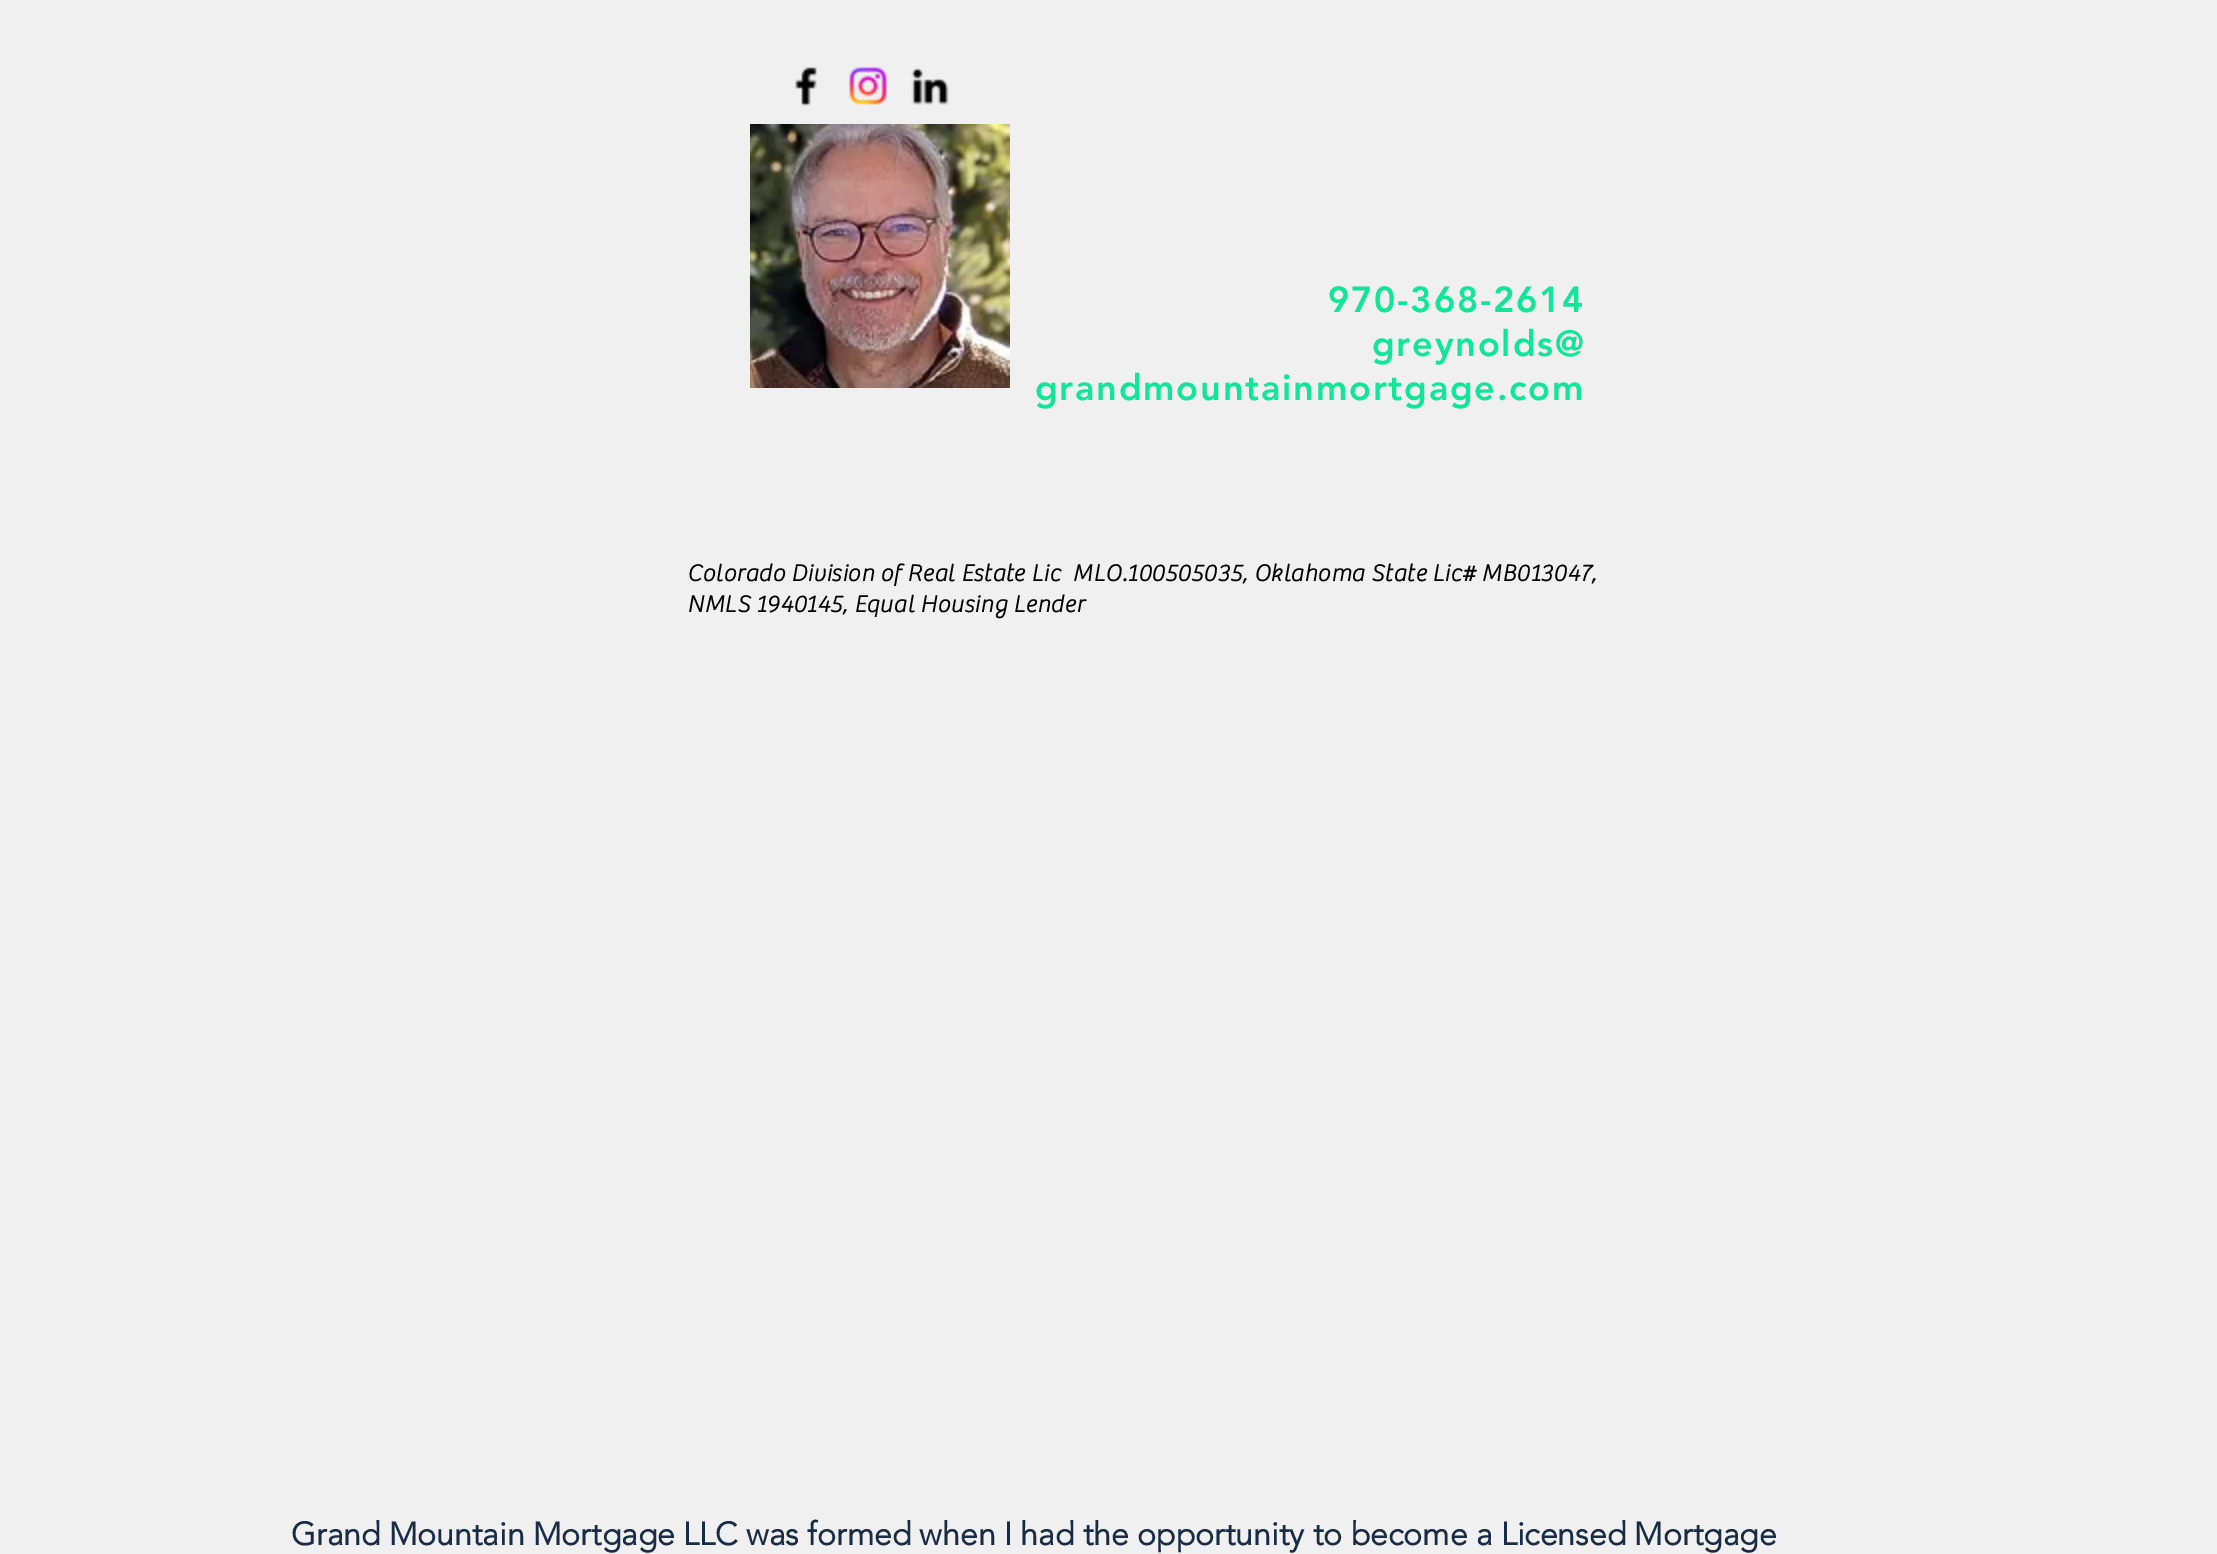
%!PS
<< /PageSize [2217 1554] >> setpagedevice
/rgb { dup -16 bitshift 255 div exch dup -8 bitshift 255 and 255 div exch 255 and 255 div setrgbcolor } def
/font { [ exch dup neg 0 0 3 -1 roll 0 0 ] selectfont } def
/text { moveto show } def
/picture { 5 dict begin { /h /w /y /x /name } { exch def } forall
  gsave x y translate w h scale
  w h 8 [w 0 0 h 0 0] name (r) file false 3 colorimage grestore end } def
0 1554 translate 1 -1 scale
4 setmiterlimit
/s1 { /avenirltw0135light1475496-Bold 32 font 16#182D45 rgb } def
16#F0F0F0 rgb
0 0 2217 1554 rectfill
(pic1.raw) 795 67 22 40 picture
(pic2.raw) 848 66 40 39 picture
(pic3.raw) 911 67 38 38 picture
(pic4.raw) 750 124 260 264 picture
/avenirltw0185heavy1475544-Black 36 font
16#10E698 rgb
1328 312 moveto 1.8 0 (970-368-2614) ashow
1372 356 moveto 1.8 0 (greynolds@) ashow
1035 400 moveto 1.8 0 (grandmountainmortgage.com) ashow
/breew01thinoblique-Bold 24 font
16#000000 rgb
687 581 moveto 0.72 0 (Colorado Division of Real Estate Lic  MLO.100505035, Oklahoma State Lic# MB013047,) ashow
687 612 moveto 0.72 0 (NMLS 1940145, Equal Housing Lender) ashow
s1
(Grand Mountain Mortgage LLC was formed when I had the opportunity to become a Licensed Mortgage) 291 1545 text
showpage
